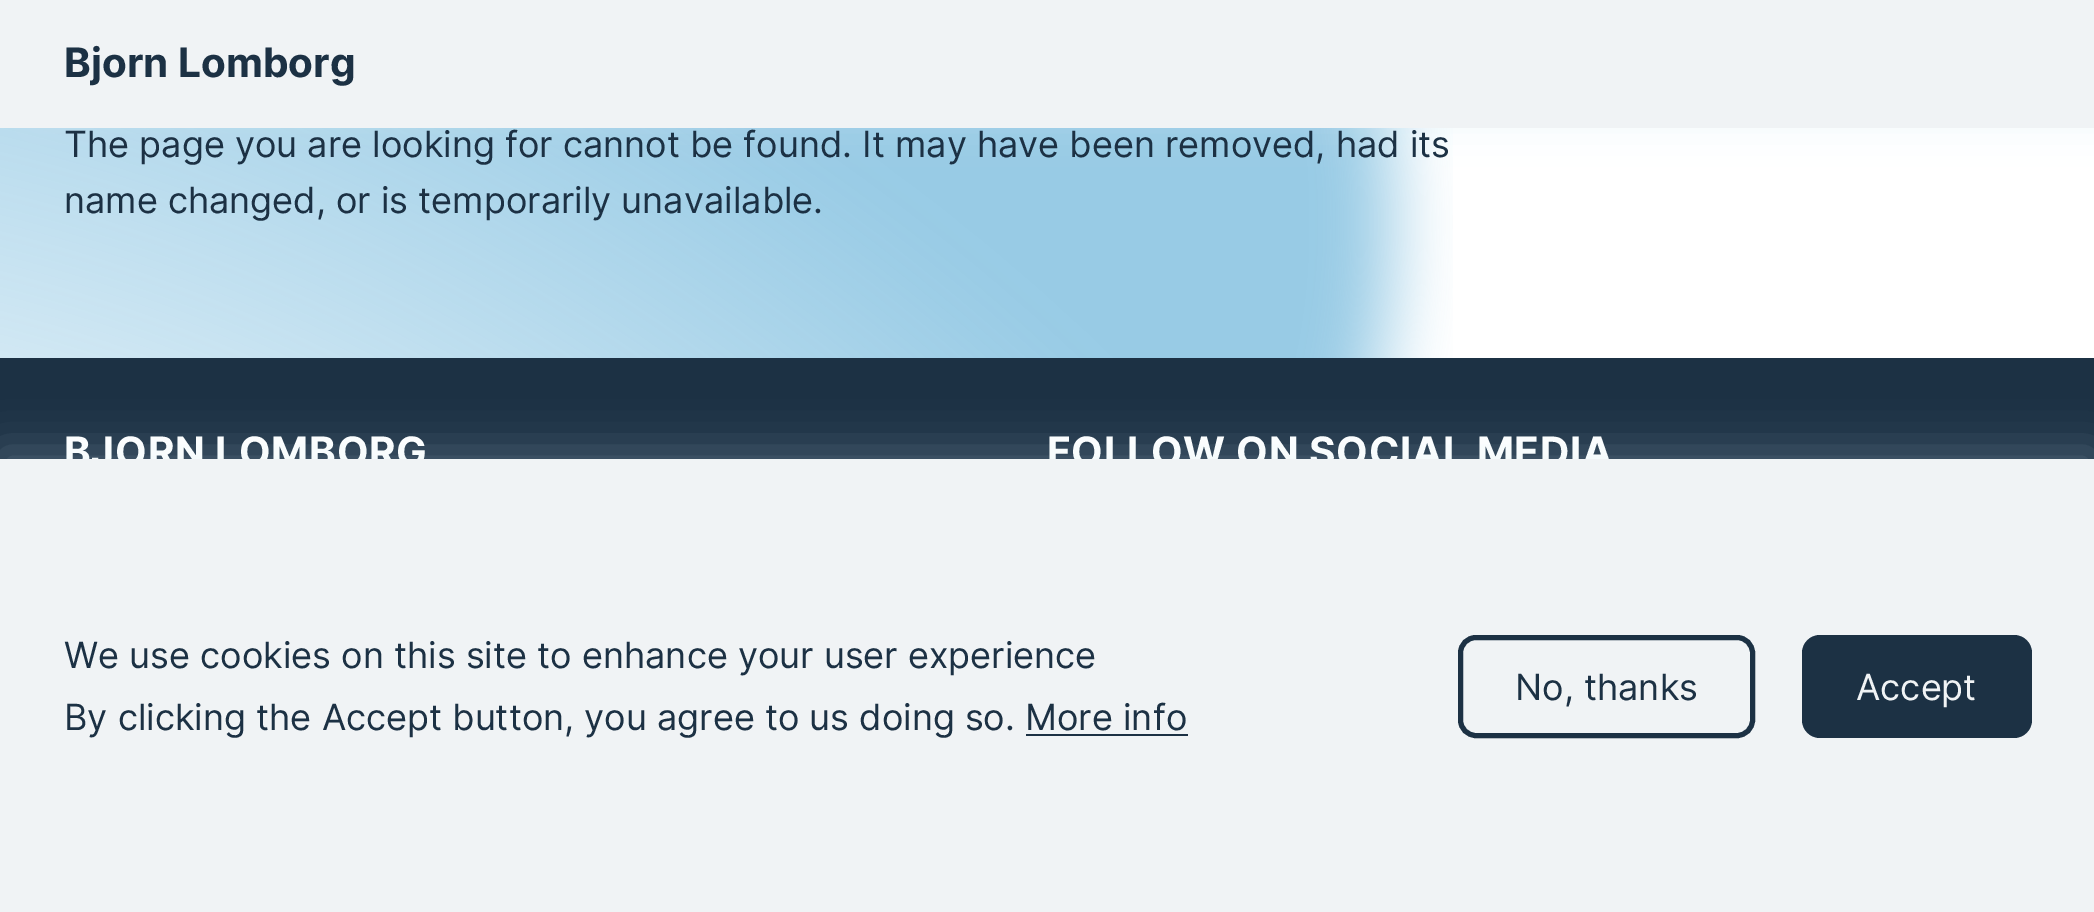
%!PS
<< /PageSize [2094 912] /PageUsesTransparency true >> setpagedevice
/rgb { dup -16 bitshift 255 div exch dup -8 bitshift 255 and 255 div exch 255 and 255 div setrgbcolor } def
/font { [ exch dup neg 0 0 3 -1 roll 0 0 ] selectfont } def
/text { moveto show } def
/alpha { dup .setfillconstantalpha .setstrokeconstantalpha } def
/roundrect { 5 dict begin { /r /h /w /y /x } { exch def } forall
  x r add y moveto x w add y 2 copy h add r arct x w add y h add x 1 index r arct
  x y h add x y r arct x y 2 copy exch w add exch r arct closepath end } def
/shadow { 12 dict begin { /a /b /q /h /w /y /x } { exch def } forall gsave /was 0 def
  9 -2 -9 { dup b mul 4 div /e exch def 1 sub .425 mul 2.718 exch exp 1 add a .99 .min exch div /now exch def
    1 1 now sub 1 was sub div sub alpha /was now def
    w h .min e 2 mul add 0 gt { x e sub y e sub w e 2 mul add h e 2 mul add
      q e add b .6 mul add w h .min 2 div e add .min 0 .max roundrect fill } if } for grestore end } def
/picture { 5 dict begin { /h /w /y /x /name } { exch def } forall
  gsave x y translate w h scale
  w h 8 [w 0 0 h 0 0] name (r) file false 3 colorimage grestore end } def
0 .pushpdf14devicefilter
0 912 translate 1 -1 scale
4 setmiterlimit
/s1 { /Inter-Bold 40.5 font 16#1C3144 rgb } def
/s2 { /Inter-Regular 36 font 16#1C3144 rgb } def
/s3 { /Inter-Regular 36 font 16#F0F3F5 rgb } def
16#FFFFFF rgb
0 0 2094 912 rectfill
(pic1.raw) 0 128 1453 230 picture
16#CCE5F2 rgb
27 0 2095 128 0 22.5 0.25 shadow
16#F0F3F5 rgb
0 0 2094 128 rectfill
s1
(Bjorn Lomborg) 64 77 text
s2
(The page you are looking for cannot be found. It may have been removed, had its) 64 157 text
(name changed, or is temporarily unavailable.) 64 213 text
0 358 2094 101 rectfill
/Inter-Bold 40.5 font
16#FFFFFF rgb
64 466 moveto 0.7 0 (BJORN LOMBORG) ashow
1047 466 moveto 0.7 0 (FOLLOW ON SOCIAL MEDIA) ashow
16#CCE5F2 rgb
0 450 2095 455 0 22.5 0.25 shadow
16#F0F3F5 rgb
0 459 2094 453 rectfill
s2
(We use cookies on this site to enhance your user experience) 64 668 text
(By clicking the Accept button, you agree to us doing so. More info) 64 730 text
1026 734 162 2 rectfill
16#DCDCDC rgb
2 setlinewidth
1459 636 295 101 17 roundrect stroke
16#1C3144 rgb
5 setlinewidth
1460.5 637.5 292 98 15.5 roundrect stroke
(No, thanks) 1515 700 text
1802 635 230 103 18 roundrect fill
s3
(Accept) 1856 700 text
.poppdf14devicefilter showpage
